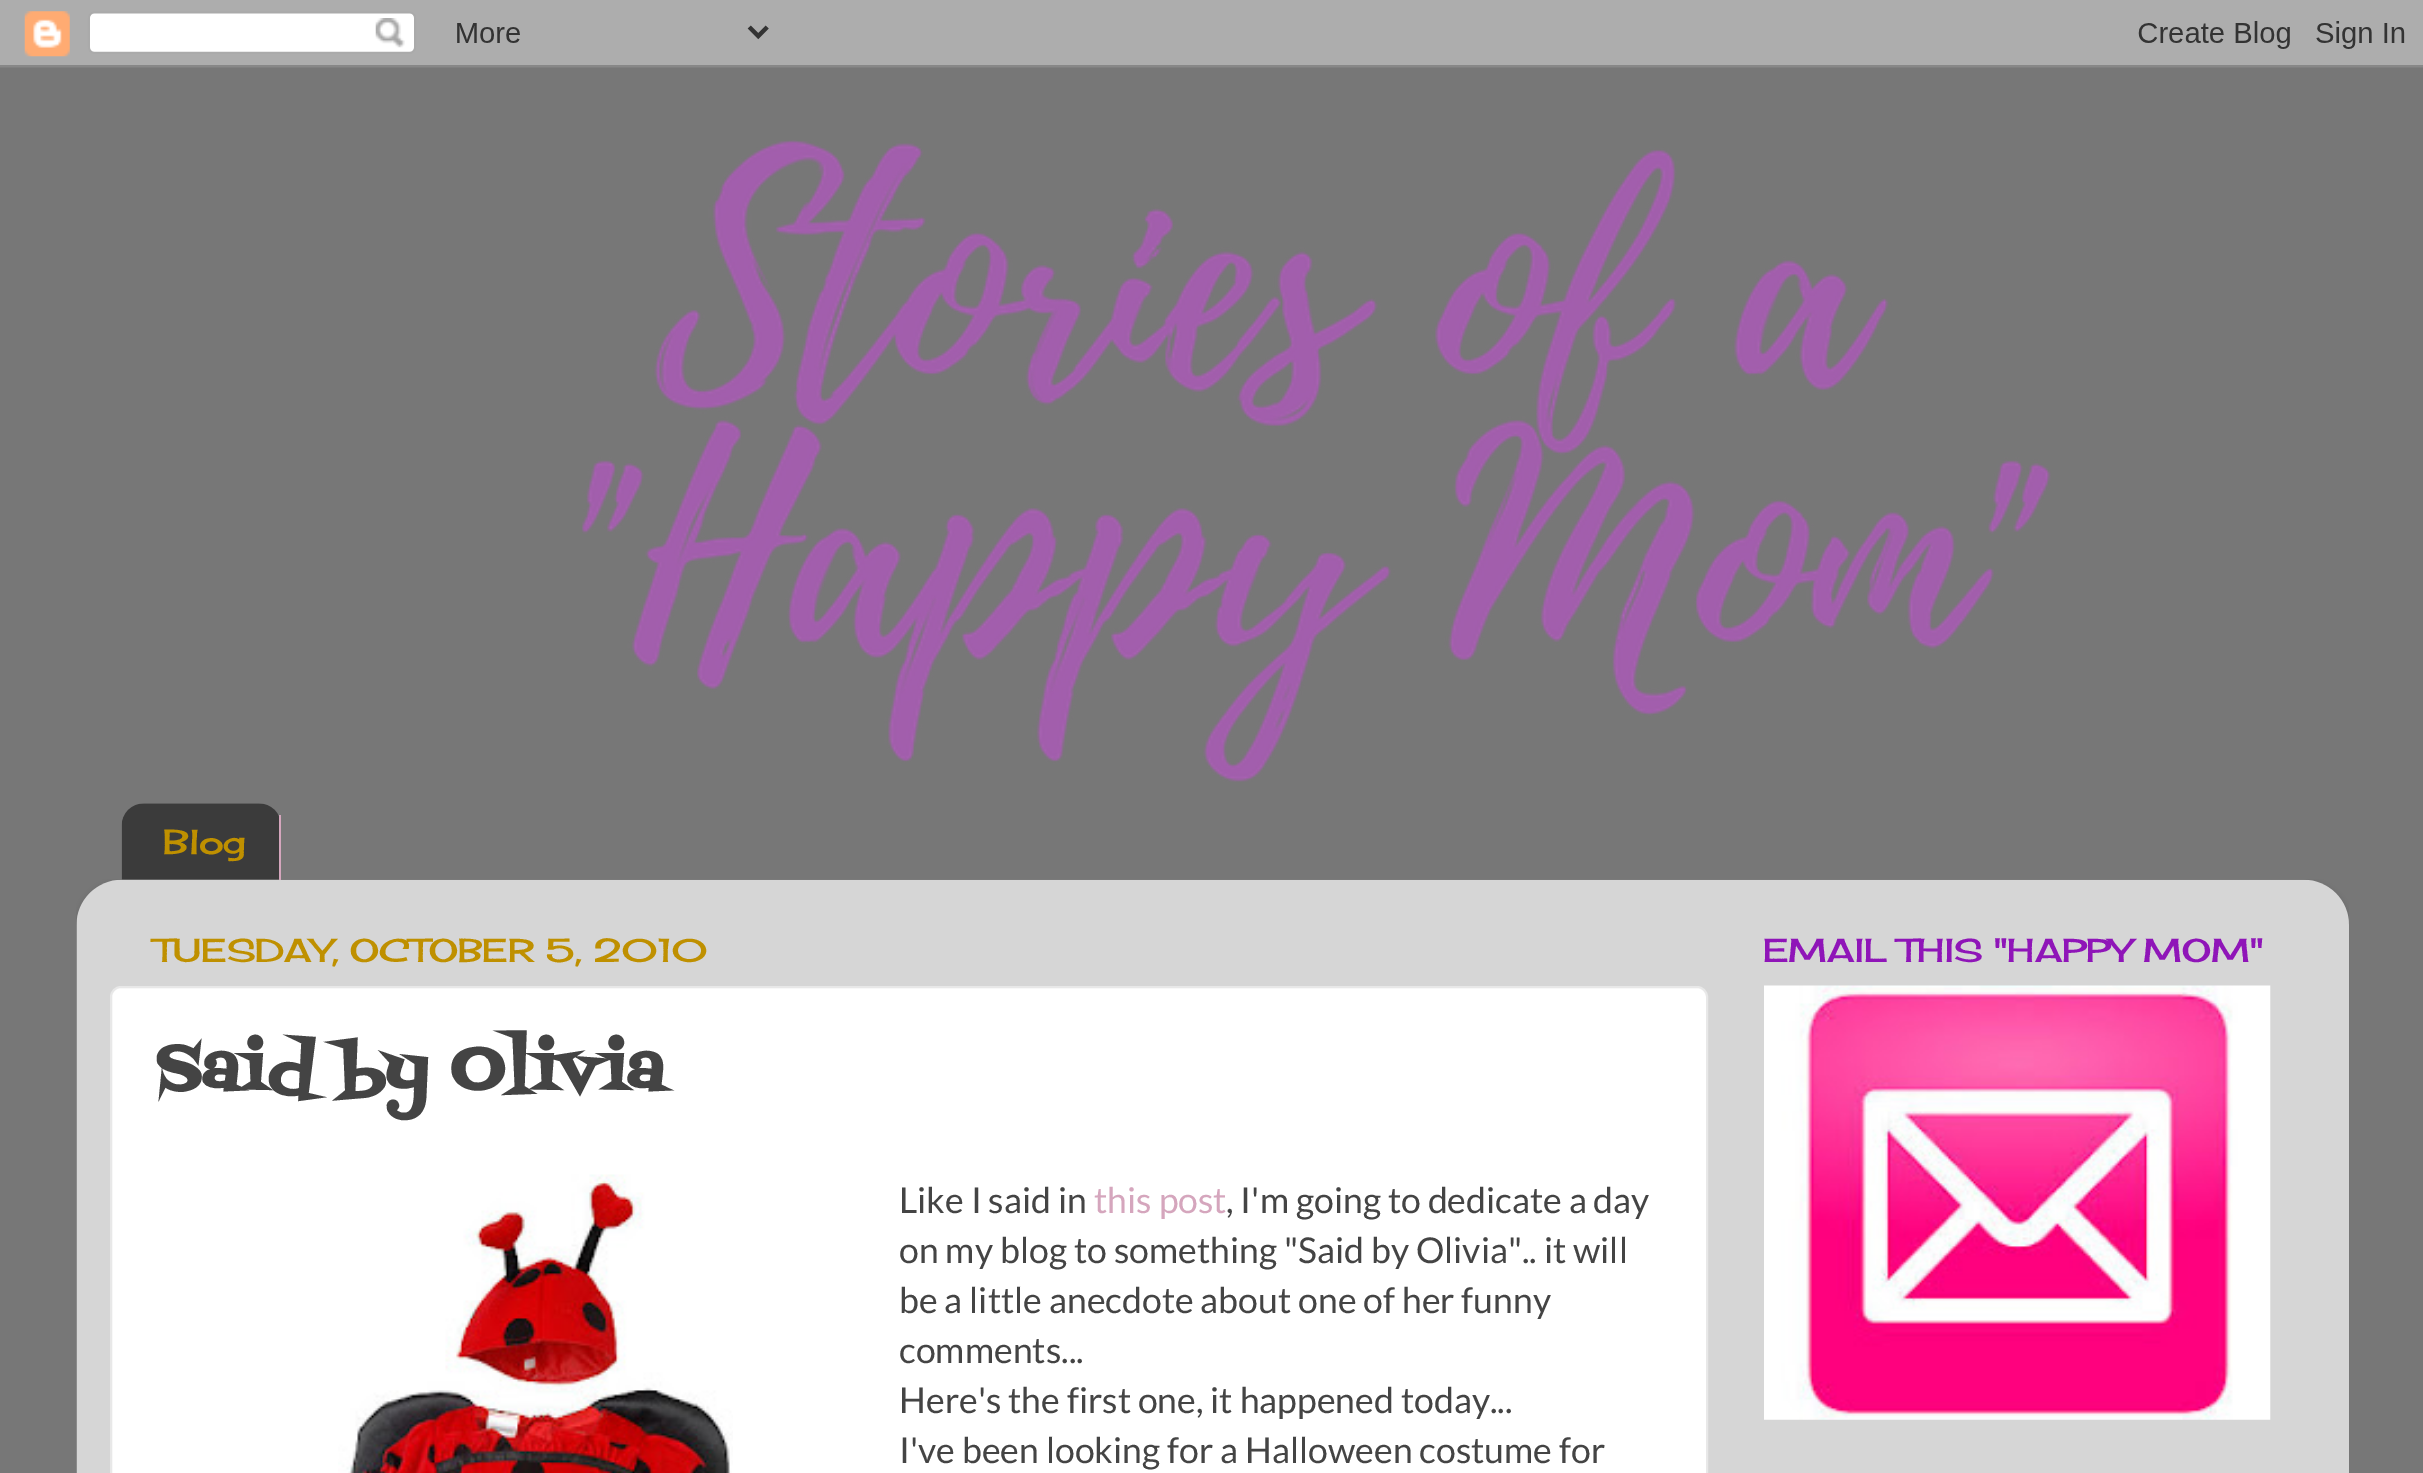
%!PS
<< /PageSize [2423 1473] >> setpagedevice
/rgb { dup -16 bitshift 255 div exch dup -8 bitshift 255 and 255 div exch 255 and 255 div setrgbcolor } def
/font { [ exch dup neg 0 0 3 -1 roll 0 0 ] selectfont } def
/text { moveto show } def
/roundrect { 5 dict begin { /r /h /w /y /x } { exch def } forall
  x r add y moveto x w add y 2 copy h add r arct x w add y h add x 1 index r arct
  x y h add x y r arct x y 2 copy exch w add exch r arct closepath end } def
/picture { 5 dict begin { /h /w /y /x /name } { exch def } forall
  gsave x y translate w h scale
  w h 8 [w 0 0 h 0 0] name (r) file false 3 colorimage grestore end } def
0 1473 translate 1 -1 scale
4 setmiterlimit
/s1 { /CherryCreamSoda-Regular 34 font 16#BF9000 rgb } def
/s2 { /CherryCreamSoda-Regular 32.4 font 16#BF9000 rgb } def
/s3 { /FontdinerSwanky-Bold 67.5 font 16#444444 rgb } def
/s4 { /Lato-Regular 35.6 font 16#444444 rgb } def
/s5 { /Lato-Regular 35.6 font 16#D5A6BD rgb } def
/s6 { /CherryCreamSoda-Regular 32.4 font 16#8F15B8 rgb } def
16#777777 rgb
0 0 2423 1473 rectfill
(pic1.raw) 0 0 2423 68 picture
(pic2.raw) 582 140 1469 642 picture
(pic3.raw) 121 803 158 77 picture
16#D5A6BD rgb
279 815 2 65 rectfill
s1
(Blog) 163 854 text
(pic4.raw) 76 879 2273 594 picture
s2
(TUESDAY, OCTOBER 5, 2010) 154 962 text
16#FFFFFF rgb
111 987 1596 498 10 roundrect gsave fill grestore
16#E8E8E8 rgb
2 setlinewidth
stroke
s3
(Said by Olivia) 156 1090 text
(pic5.raw) 338 1174 395 299 picture
s4
(Like I said in) 899 1213 text
s5
(this post) 1094 1213 text
s4
(, I'm going to dedicate a day) 1226 1213 text
(on my blog to something "Said by Olivia".. it will) 899 1263 text
(be a little anecdote about one of her funny) 899 1313 text
(comments...) 899 1363 text
(Here's the first one, it happened today...) 899 1413 text
(I've been looking for a Halloween costume for) 899 1463 text
s6
(EMAIL THIS "HAPPY MOM") 1763 962 text
(pic6.raw) 1764 985 507 435 picture
showpage
